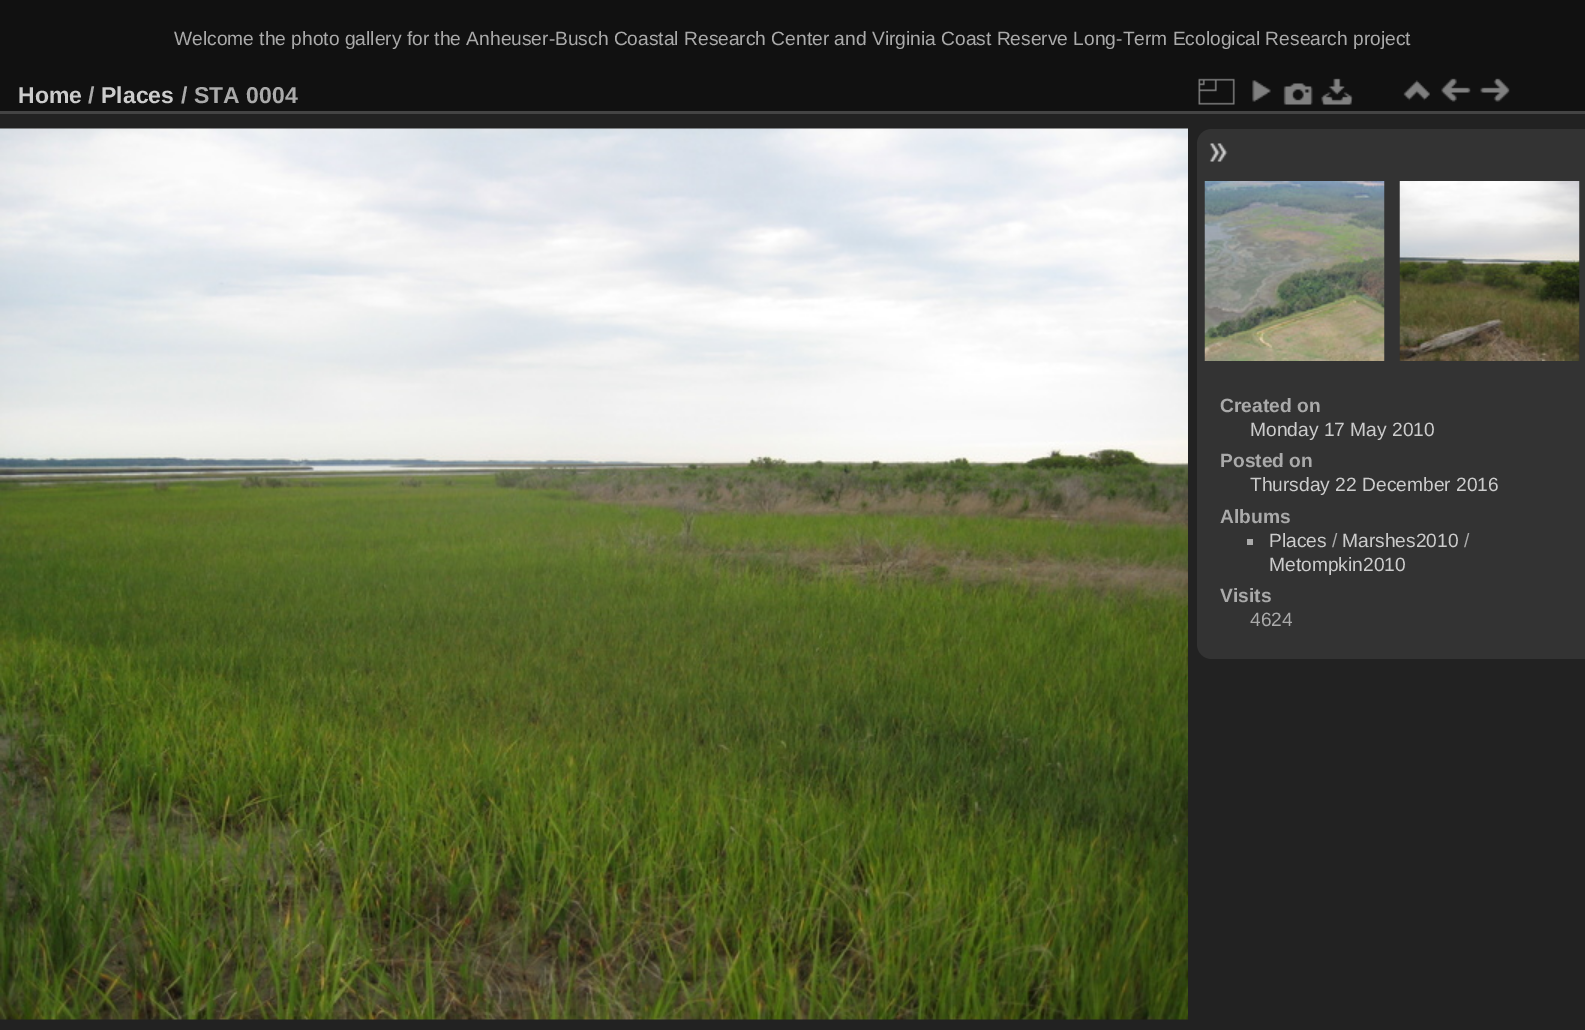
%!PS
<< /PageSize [1585 1030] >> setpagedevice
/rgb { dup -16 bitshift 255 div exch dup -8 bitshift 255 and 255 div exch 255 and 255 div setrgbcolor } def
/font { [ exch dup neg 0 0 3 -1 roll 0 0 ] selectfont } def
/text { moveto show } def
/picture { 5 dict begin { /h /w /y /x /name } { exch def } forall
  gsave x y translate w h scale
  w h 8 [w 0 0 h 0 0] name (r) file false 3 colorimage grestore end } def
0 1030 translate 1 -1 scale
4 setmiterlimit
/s1 { /LiberationSans-Regular 19.2 font 16#AAAAAA rgb } def
/s2 { /LiberationSans-Bold 23 font 16#CCCCCC rgb } def
/s3 { /LiberationSans-Bold 23 font 16#AAAAAA rgb } def
/s4 { /LiberationSans-Bold 19.2 font 16#AAAAAA rgb } def
/s5 { /LiberationSans-Regular 19.2 font 16#CCCCCC rgb } def
16#111111 rgb
0 0 1585 1030 rectfill
s1
(Welcome the photo gallery for the Anheuser-Busch Coastal Research Center and Virginia Coast Reserve Long-Term Ecological Research project) 174 45 text
16#222222 rgb
0 114 1585 916 rectfill
16#444444 rgb
0 111 1585 3 rectfill
s2
(Home) 18 103 text
s3
(/) 88 103 text
s2
(Places) 101 103 text
s3
(/ STA 0004) 181 103 text
(pic1.raw) 1198 78 37 27 picture
(pic2.raw) 1252 80 19 22 picture
(pic3.raw) 1283 83 30 22 picture
(pic4.raw) 1321 78 32 27 picture
(pic5.raw) 1403 80 27 21 picture
(pic6.raw) 1441 78 30 24 picture
(pic7.raw) 1480 78 30 24 picture
(pic8.raw) 0 128 1188 892 picture
16#333333 rgb
1212 129 moveto 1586 129 lineto 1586 659 lineto 1212 659 lineto 1203.5 659 1197 652.5 1197 644 curveto 1197 144 lineto 1197 135.5 1203.5 129 1212 129 curveto closepath fill
(pic9.raw) 1209 143 19 19 picture
(pic10.raw) 1204 181 181 180 picture
(pic11.raw) 1399 181 181 180 picture
s4
(Created on) 1220 412 text
s5
(Monday 17 May 2010) 1250 436 text
s4
(Posted on) 1220 467 text
s5
(Thursday 22 December 2016) 1250 491 text
s4
(Albums) 1220 523 text
1247 539 6 6 rectfill
s5
(Places) 1269 547 text
s1
(/) 1332 547 text
s5
(Marshes2010) 1342 547 text
s1
(/) 1464 547 text
s5
(Metompkin2010) 1269 571 text
s4
(Visits) 1220 602 text
s1
(4624) 1250 626 text
showpage
